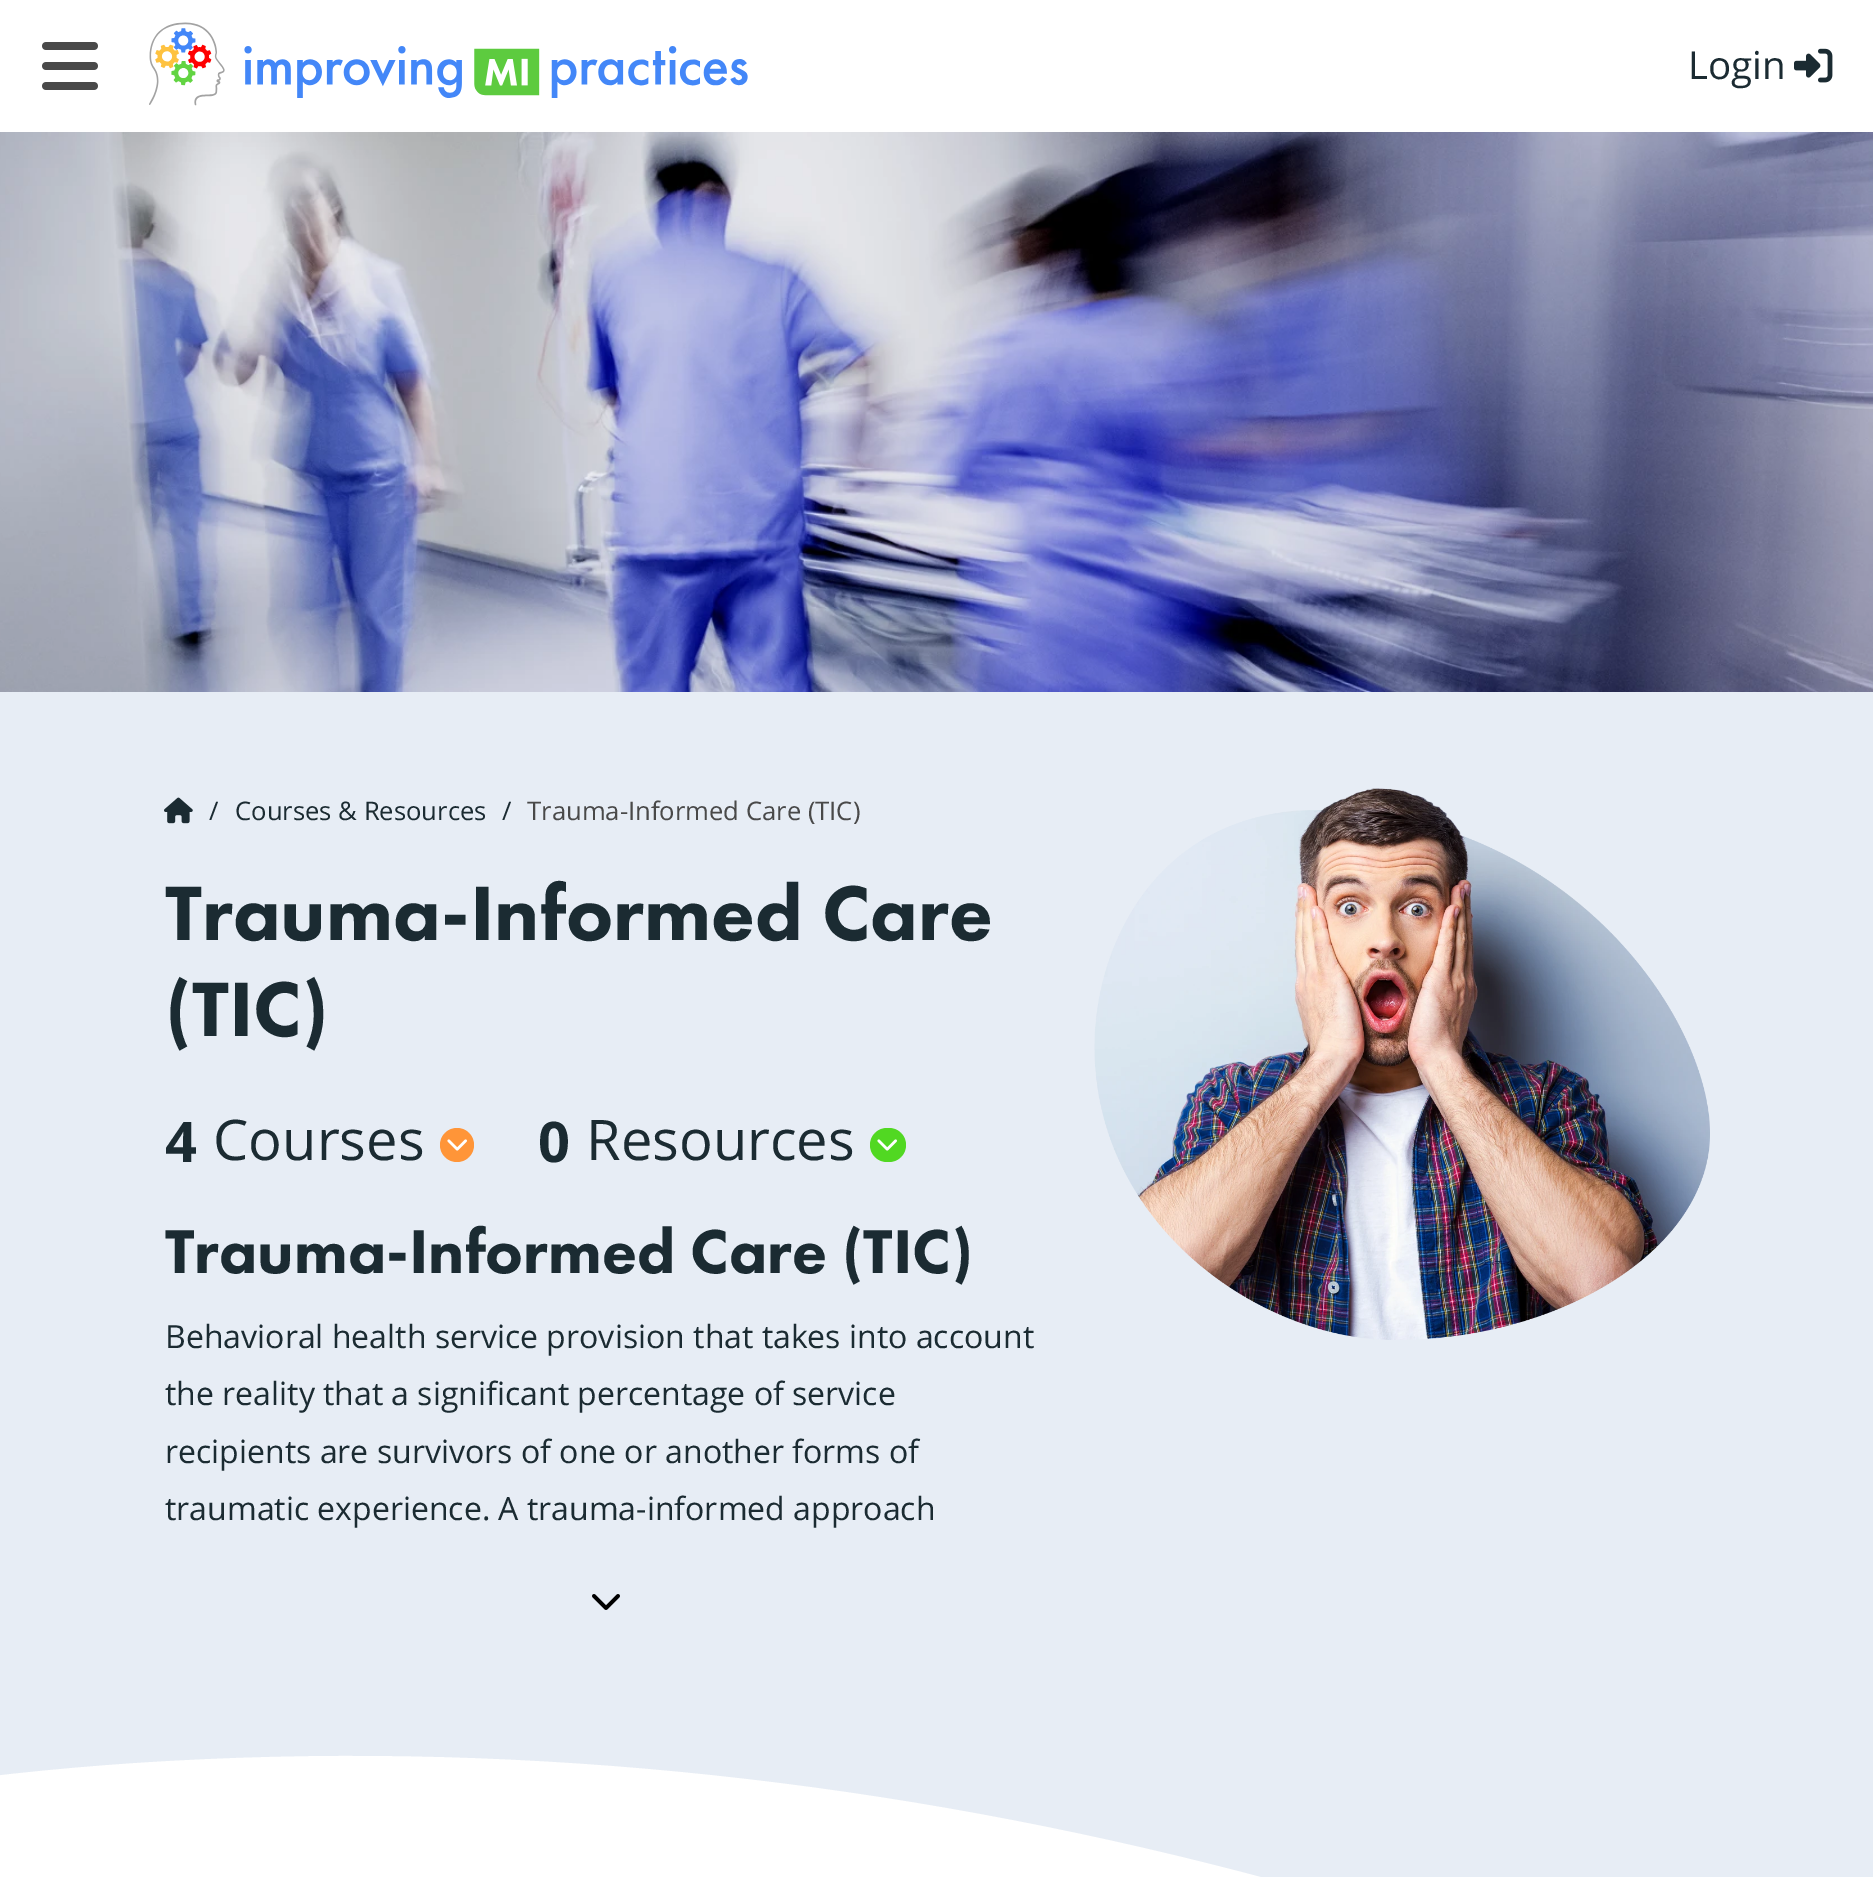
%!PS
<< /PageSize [1873 1877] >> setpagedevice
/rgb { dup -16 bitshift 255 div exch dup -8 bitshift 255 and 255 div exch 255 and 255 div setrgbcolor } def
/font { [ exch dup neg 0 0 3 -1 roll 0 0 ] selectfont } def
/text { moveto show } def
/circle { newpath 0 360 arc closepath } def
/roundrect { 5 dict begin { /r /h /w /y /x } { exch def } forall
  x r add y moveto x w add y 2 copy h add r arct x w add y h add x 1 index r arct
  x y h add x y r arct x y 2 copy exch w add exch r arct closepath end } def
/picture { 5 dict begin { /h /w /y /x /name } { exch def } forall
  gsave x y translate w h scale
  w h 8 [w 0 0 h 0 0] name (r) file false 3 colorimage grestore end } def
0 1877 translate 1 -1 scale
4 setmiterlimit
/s1 { /OpenSans-Regular 38.5 font 16#1B2B32 rgb } def
/s2 { /OpenSans-Regular 25.6 font 16#1B2B32 rgb } def
/s3 { /OpenSans-Regular 25.6 font 16#494949 rgb } def
/s4 { /FuturaPT-Black 80 font 16#1B2B32 rgb } def
/s5 { /OpenSans-Bold 56 font 16#1B2B32 rgb } def
/s6 { /OpenSans-Regular 56 font 16#1B2B32 rgb } def
/s7 { /FuturaPT-Black 64 font 16#1B2B32 rgb } def
/s8 { /OpenSans-Regular 32 font 16#1B2B32 rgb } def
16#E7EDF5 rgb
0 0 1873 1877 rectfill
16#FFFFFF rgb
0 0 1873 132 rectfill
(pic1.raw) 42 42 56 48 picture
(pic2.raw) 149 22 599 84 picture
s1
(Login) 1688 79 text
(pic3.raw) 1794 48 39 35 picture
(pic4.raw) 0 132 1873 560 picture
(pic5.raw) 164 797 29 27 picture
s2
(/) 209 820 text
(Courses & Resources) 235 820 text
(/) 502 820 text
s3
(Trauma-Informed Care \(TIC\)) 527 820 text
s4
(Trauma-Informed Care) 165 940 text
(\(TIC\)) 165 1036 text
s5
(4) 165 1162 text
s6
(Courses) 213 1160 text
16#FF9538 rgb
457 1145 17 circle fill
(pic6.raw) 447 1139 20 12 picture
s5
(0) 538 1162 text
s6
(Resources) 586 1160 text
16#51D822 rgb
870 1128 36 34 17 roundrect fill
(pic7.raw) 877 1139 20 12 picture
s7
(Trauma-Informed Care \(TIC\)) 165 1273 text
s8
(Behavioral health service provision that takes into account) 165 1348 text
(the reality that a significant percentage of service) 165 1405 text
(recipients are survivors of one or another forms of) 165 1463 text
(traumatic experience. A trauma-informed approach) 165 1520 text
(pic8.raw) 592 1594 28 16 picture
(pic9.raw) 1094 788 616 552 picture
16#FFFFFF rgb
871 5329 moveto -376 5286 -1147 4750 -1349 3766 curveto -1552 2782 -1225 1853 137 1763 curveto 1590 1667 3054 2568 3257 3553 curveto 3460 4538 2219 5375 871 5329 curveto closepath fill
showpage
